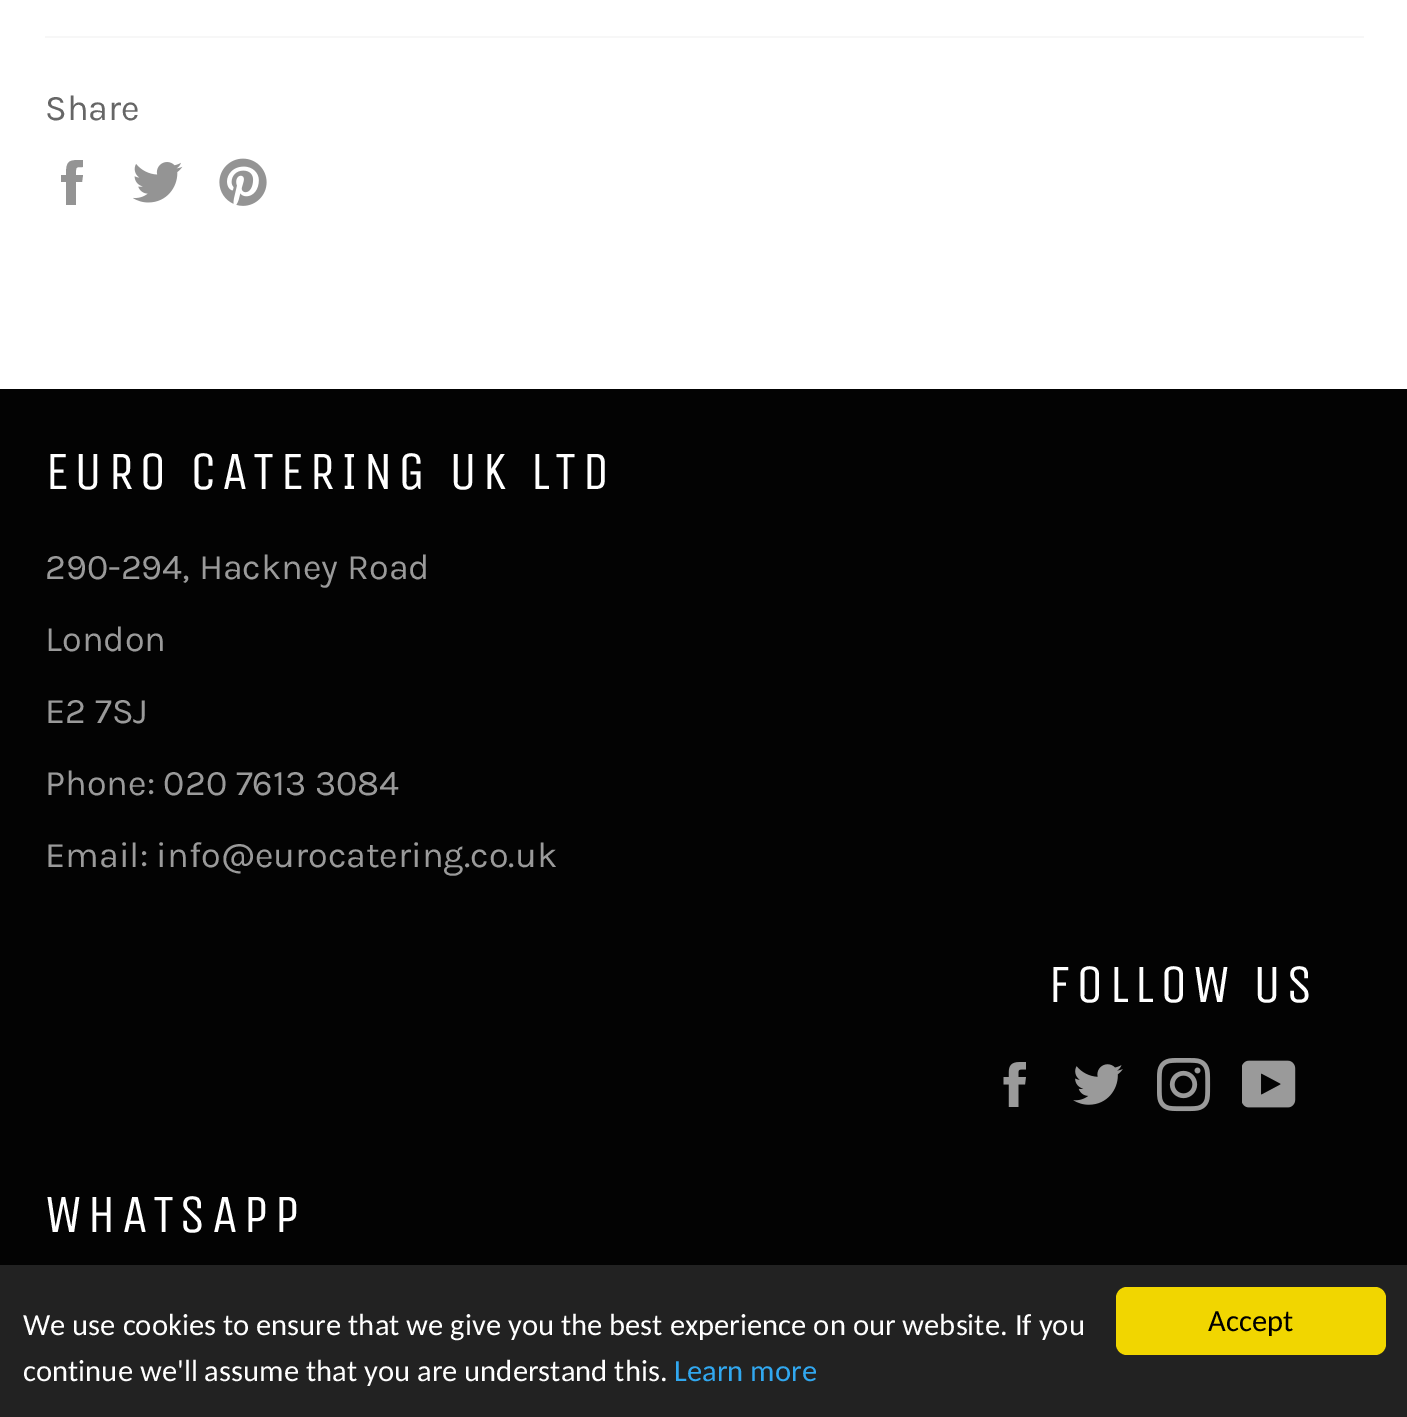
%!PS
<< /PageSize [1407 1417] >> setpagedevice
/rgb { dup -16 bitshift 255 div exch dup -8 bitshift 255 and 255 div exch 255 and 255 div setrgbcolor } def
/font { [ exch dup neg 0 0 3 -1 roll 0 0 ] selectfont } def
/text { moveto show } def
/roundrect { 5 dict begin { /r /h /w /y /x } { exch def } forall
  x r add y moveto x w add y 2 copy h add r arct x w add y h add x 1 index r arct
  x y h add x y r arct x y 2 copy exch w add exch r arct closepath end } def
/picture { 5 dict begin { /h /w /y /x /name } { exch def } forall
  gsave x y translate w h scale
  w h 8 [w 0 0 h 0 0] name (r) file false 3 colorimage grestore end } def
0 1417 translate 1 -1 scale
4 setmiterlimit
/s1 { /Karla-Regular 36 font 16#666666 rgb } def
/s2 { /Karla-Regular 36 font 16#9A9A9A rgb } def
/s3 { /Carlito-Regular 30.6 font 16#FFFFFF rgb } def
/s4 { /Carlito-Regular 30.6 font 16#31A8F0 rgb } def
/s5 { /Carlito-Regular 30.6 font 16#000000 rgb } def
16#FFFFFF rgb
0 0 1407 1417 rectfill
16#F7F7F7 rgb
45 36 1319 2 rectfill
s1
(Share) 45 120 text
16#949494 rgb
76 175 moveto 76 167 75 167 83 167 curveto 83 160 lineto 69 160 66 160 66 175 curveto 61 175 lineto 61 182 lineto 66 182 lineto 66 205 lineto 76 205 lineto 76 182 lineto 82 182 lineto 83 175 lineto closepath fill
(pic1.raw) 133 162 50 41 picture
(pic2.raw) 219 158 48 48 picture
16#030303 rgb
0 389 1407 876 rectfill
/UnicaOne-Regular 54 font
16#FFFFFF rgb
45 489 moveto 5.4 0 (EURO CATERING UK LTD) ashow
s2
(290-294, Hackney Road) 45 579 text
(London) 45 651 text
(E2 7SJ) 45 723 text
(Phone: 020 7613 3084) 45 795 text
(Email: info@eurocatering.co.uk) 45 867 text
/UnicaOne-Regular 54 font
16#FFFFFF rgb
1048 1002 moveto 5.4 0 (FOLLOW US) ashow
(pic3.raw) 1003 1062 23 45 picture
(pic4.raw) 1073 1064 50 41 picture
(pic5.raw) 1157 1058 54 54 picture
(pic6.raw) 1242 1060 54 48 picture
45 1232 moveto 5.4 0 (WHATSAPP) ashow
16#222222 rgb
0 1265 1407 152 rectfill
s3
(We use cookies to ensure that we give you the best experience on our website. If you) 23 1335 text
(continue we'll assume that you are understand this.) 23 1381 text
s4
(Learn more) 674 1381 text
16#F1D600 rgb
1116 1287 270 68 11 roundrect fill
s5
(Accept) 1208 1331 text
showpage
